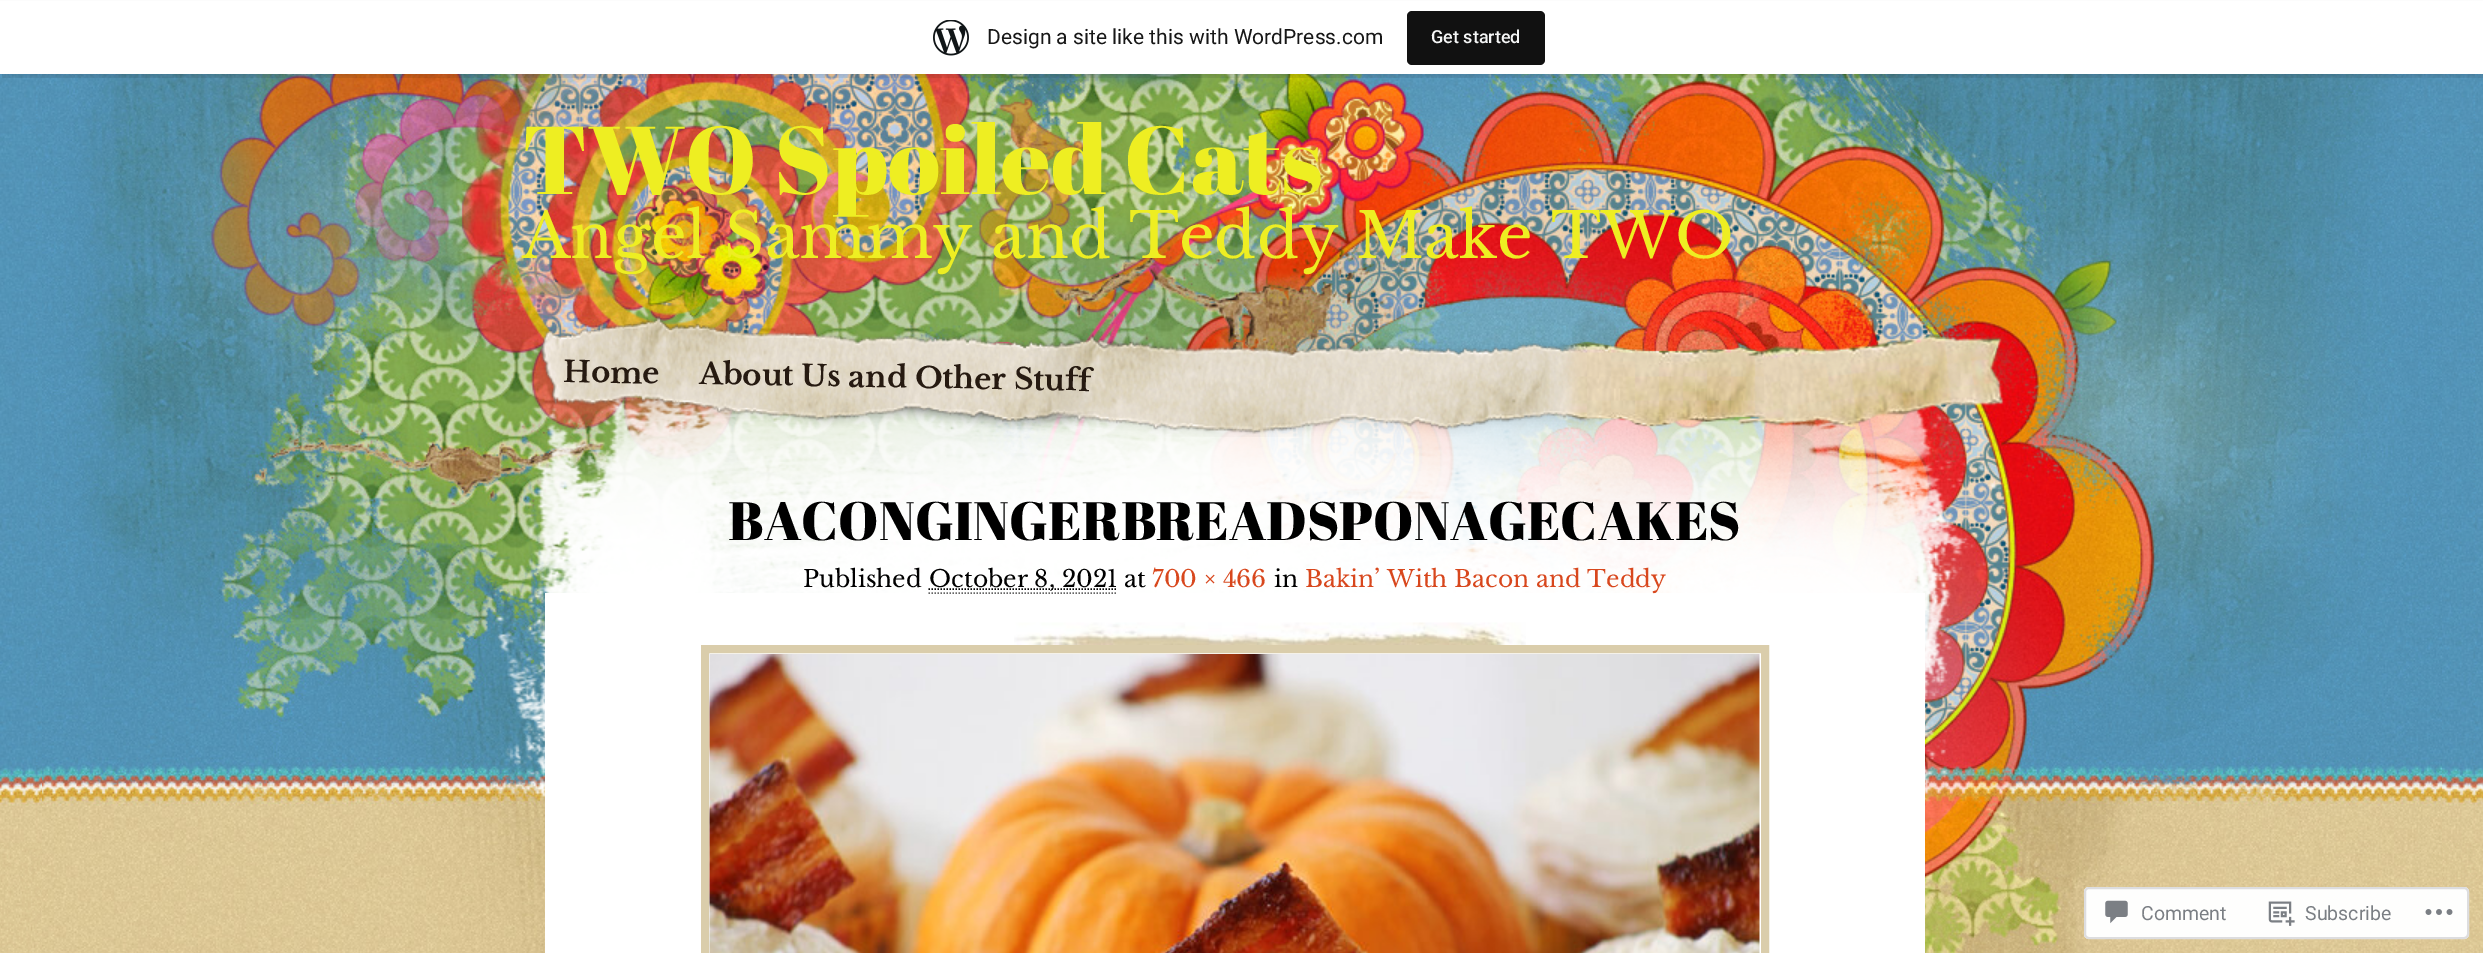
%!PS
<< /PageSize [2483 953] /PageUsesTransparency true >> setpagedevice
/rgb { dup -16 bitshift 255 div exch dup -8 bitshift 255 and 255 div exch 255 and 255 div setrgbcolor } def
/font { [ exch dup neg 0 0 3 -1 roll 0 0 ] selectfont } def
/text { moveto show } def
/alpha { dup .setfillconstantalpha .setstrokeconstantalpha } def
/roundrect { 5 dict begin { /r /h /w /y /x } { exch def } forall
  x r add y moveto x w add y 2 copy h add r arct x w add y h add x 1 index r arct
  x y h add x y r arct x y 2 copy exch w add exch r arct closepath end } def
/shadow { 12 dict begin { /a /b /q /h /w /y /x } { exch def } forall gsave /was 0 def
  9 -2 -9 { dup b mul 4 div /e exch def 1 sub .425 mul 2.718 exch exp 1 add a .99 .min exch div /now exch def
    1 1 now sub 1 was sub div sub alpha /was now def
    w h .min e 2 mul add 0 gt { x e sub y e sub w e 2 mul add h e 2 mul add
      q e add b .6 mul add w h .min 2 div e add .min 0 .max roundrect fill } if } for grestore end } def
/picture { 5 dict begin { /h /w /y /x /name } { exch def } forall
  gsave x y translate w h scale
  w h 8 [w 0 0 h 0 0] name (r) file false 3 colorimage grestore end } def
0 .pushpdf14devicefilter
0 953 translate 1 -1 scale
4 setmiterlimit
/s1 { /Roboto-Regular 21 font 16#171717 rgb } def
/s2 { /Roboto-Medium 18 font 16#F6F7F7 rgb } def
/s3 { /AbrilFatface-Regular 96 font 16#EEEE22 rgb } def
/s4 { /LibreBaskerville-Regular 62.4 font 16#EEEE22 rgb } def
/s5 { /AbrilFatface-Regular 54 font 16#000000 rgb } def
/s6 { /LibreBaskerville-Regular 23.4 font 16#000000 rgb } def
/s7 { /LibreBaskerville-Regular 23.4 font 16#D8471D rgb } def
/s8 { /Roboto-Regular 19.5 font 16#7B7F84 rgb } def
16#FFFFFF rgb
0 0 2483 953 rectfill
(pic1.raw) 0 843 2483 110 picture
(pic3.raw) 0 74 2483 769 picture
(pic4.raw) 42 74 2400 879 picture
16#000000 rgb
0 2 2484 73 0 1.5 0.05 shadow
0.08 alpha
2 74 moveto 2 78 lineto 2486 78 lineto 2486 5 lineto 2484 5 lineto 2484 74 lineto closepath fill
1 alpha
16#FFFFFF rgb
0 1 2483 73 rectfill
(pic2.raw) 933 20 36 36 picture
s1
(Design a site like this with WordPress.com) 987 44 text
16#111111 rgb
1407 11 138 54 5 roundrect fill
s2
(Get started) 1431 43 text
s3
(TWO Spoiled Cats) 522 194 text
s4
(Angel Sammy and Teddy Make TWO) 522 258 text
(pic6.raw) 486 394 1524 409 picture
(pic5.raw) 540 314 1464 123 picture
/LibreBaskerville-Bold 29.25 font
16#261A11 rgb
gsave 563 382 translate 1 rotate 0 0 moveto (Home) show grestore
gsave 699 384 translate 1 rotate 0 0 moveto (About Us and Other Stuff) show grestore
16#FFFFFF rgb
545 593 1380 360 rectfill
s5
(BACONGINGERBREADSPONAGECAKES) 728 540 text
s6
(Published) 803 587 text
1.5 setlinewidth
[1.5 1.5] 0 setdash
928.5 589 moveto 1117.5 589 lineto stroke
(October 8, 2021 at) 929 587 text
16#666666 rgb
928.5 593 moveto 1117.5 593 lineto stroke
s7
(700 × 466) 1152 587 text
s6
(in) 1274 587 text
s7
(Bakin’ With Bacon and Teddy) 1305 587 text
(pic7.raw) 1014 622 512 23 picture
16#DACDAB rgb
8 setlinewidth
[] 0 setdash
705 649 1060 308 rectstroke
(pic8.raw) 709 654 1051 299 picture
0.98 alpha
16#FFFFFF rgb
2084 887 385 52 5 roundrect fill
16#DCDCDE rgb
2 setlinewidth
2085 888 383 50 4 roundrect stroke
1 alpha
(pic9.raw) 2105 900 23 24 picture
s8
(Comment) 2141 920 text
(pic10.raw) 2268 901 27 25 picture
(Subscribe) 2305 920 text
(pic11.raw) 2425 909 28 6 picture
.poppdf14devicefilter showpage
